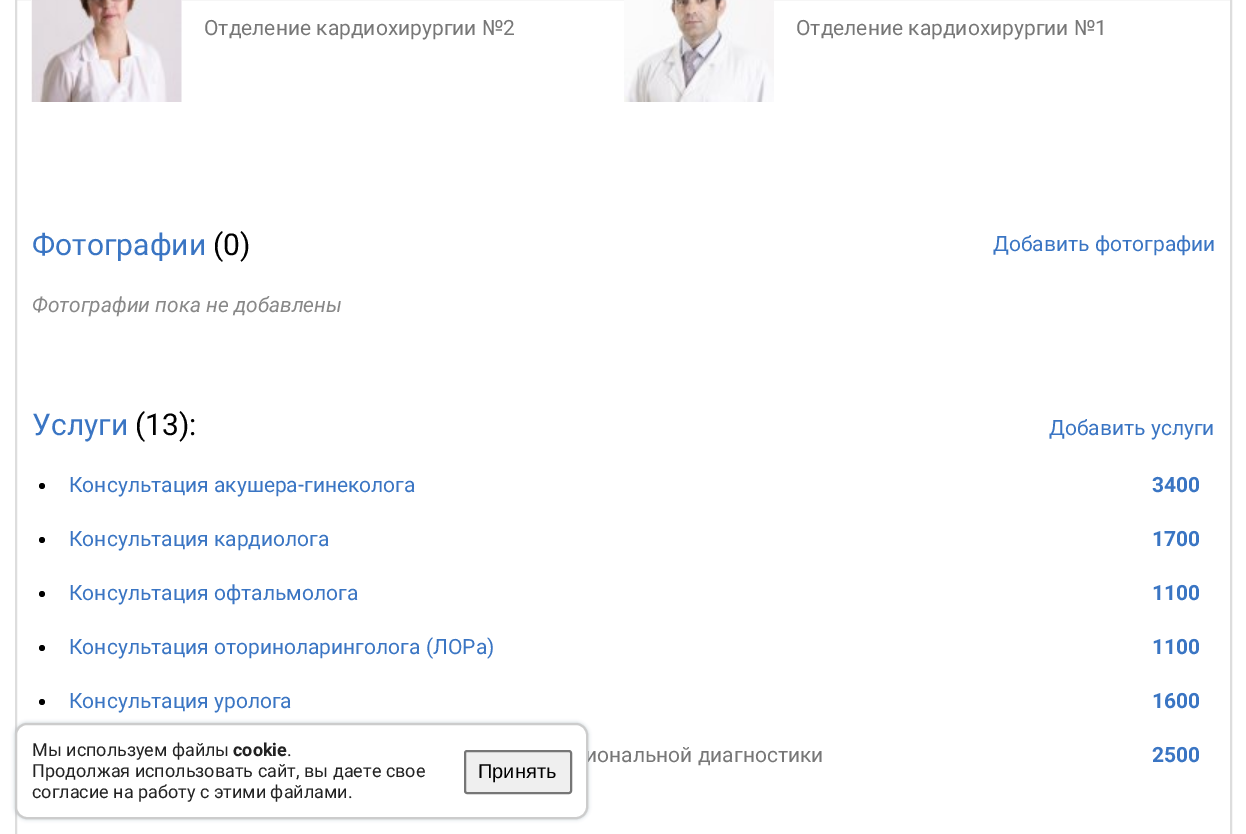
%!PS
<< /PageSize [1246 834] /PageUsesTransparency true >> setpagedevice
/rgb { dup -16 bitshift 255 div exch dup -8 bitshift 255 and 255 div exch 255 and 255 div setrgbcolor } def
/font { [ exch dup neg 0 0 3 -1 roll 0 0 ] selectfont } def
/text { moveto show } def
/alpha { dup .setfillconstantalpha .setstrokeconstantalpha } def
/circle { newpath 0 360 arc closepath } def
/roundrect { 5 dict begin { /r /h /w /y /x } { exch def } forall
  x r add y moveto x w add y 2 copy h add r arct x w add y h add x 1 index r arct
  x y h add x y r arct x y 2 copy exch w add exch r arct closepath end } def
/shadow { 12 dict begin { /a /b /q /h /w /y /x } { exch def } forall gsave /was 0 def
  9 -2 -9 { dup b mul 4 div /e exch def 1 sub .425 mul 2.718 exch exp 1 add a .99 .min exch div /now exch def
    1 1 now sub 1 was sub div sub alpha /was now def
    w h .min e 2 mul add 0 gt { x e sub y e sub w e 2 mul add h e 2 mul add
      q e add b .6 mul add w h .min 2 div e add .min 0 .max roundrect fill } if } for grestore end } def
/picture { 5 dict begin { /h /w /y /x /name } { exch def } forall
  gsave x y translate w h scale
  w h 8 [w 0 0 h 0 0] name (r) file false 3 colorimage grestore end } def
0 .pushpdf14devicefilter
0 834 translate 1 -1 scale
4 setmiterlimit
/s1 { /Roboto-Regular 21 font 16#777777 rgb } def
/s2 { /Roboto-Regular 30 font 16#3A75C3 rgb } def
/s3 { /Roboto-Regular 30 font 16#000000 rgb } def
/s4 { /Roboto-Regular 21 font 16#3A75C3 rgb } def
/s5 { /Roboto-Italic 21 font 16#888888 rgb } def
/s6 { /Roboto-Bold 21 font 16#3A75C3 rgb } def
/s7 { /Roboto-Regular 18 font 16#222222 rgb } def
/s8 { /Roboto-Bold 18 font 16#222222 rgb } def
/s9 { /LiberationSans-Regular 20 font 16#000000 rgb } def
16#FFFFFF rgb
0 0 1246 834 rectfill
16#DDDDDD rgb
2 setlinewidth
16 -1 1215 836 rectstroke
(pic1.raw) 31 0 151 102 picture
s1
(Отделение кардиохирургии №2) 204 35 text
(pic2.raw) 624 0 150 102 picture
(Отделение кардиохирургии №1) 796 35 text
s2
(Фотографии) 32 255 text
s3
(\(0\)) 213 255 text
s4
(Добавить фотографии) 993 251 text
s5
(Фотографии пока не добавлены) 32 312 text
s2
(Услуги) 32 435 text
s3
(\(13\):) 135 435 text
s4
(Добавить услуги) 1049 435 text
16#000000 rgb
42 486 3 circle fill
s4
(Консультация акушера-гинеколога) 69 492 text
s6
(3400) 1152 492 text
16#000000 rgb
42 540 3 circle fill
s4
(Консультация кардиолога) 69 546 text
s6
(1700) 1152 546 text
16#000000 rgb
42 594 3 circle fill
s4
(Консультация офтальмолога) 69 600 text
s6
(1100) 1152 600 text
16#000000 rgb
42 648 3 circle fill
s4
(Консультация оториноларинголога \(ЛОРа\)) 69 654 text
s6
(1100) 1152 654 text
16#000000 rgb
42 702 3 circle fill
s4
(Консультация уролога) 69 708 text
s6
(1600) 1152 708 text
s1
(иональной диагностики) 585 762 text
s6
(2500) 1152 762 text
16#223C50 rgb
15 723 573 96 12 2 0.3 shadow
16#FFFFFF rgb
16 724 571 94 11 roundrect gsave fill grestore
16#CCCCCC rgb
stroke
s7
(Мы используем файлы) 32 756 text
s8
(cookie) 233 756 text
s7
(.) 287 756 text
(Продолжая использовать сайт, вы даете свое) 32 777 text
(согласие на работу с этими файлами.) 32 798 text
16#EFEFEF rgb
465 751 106 42 2 roundrect gsave fill grestore
16#767676 rgb
stroke
s9
(Принять) 478 778 text
.poppdf14devicefilter showpage
